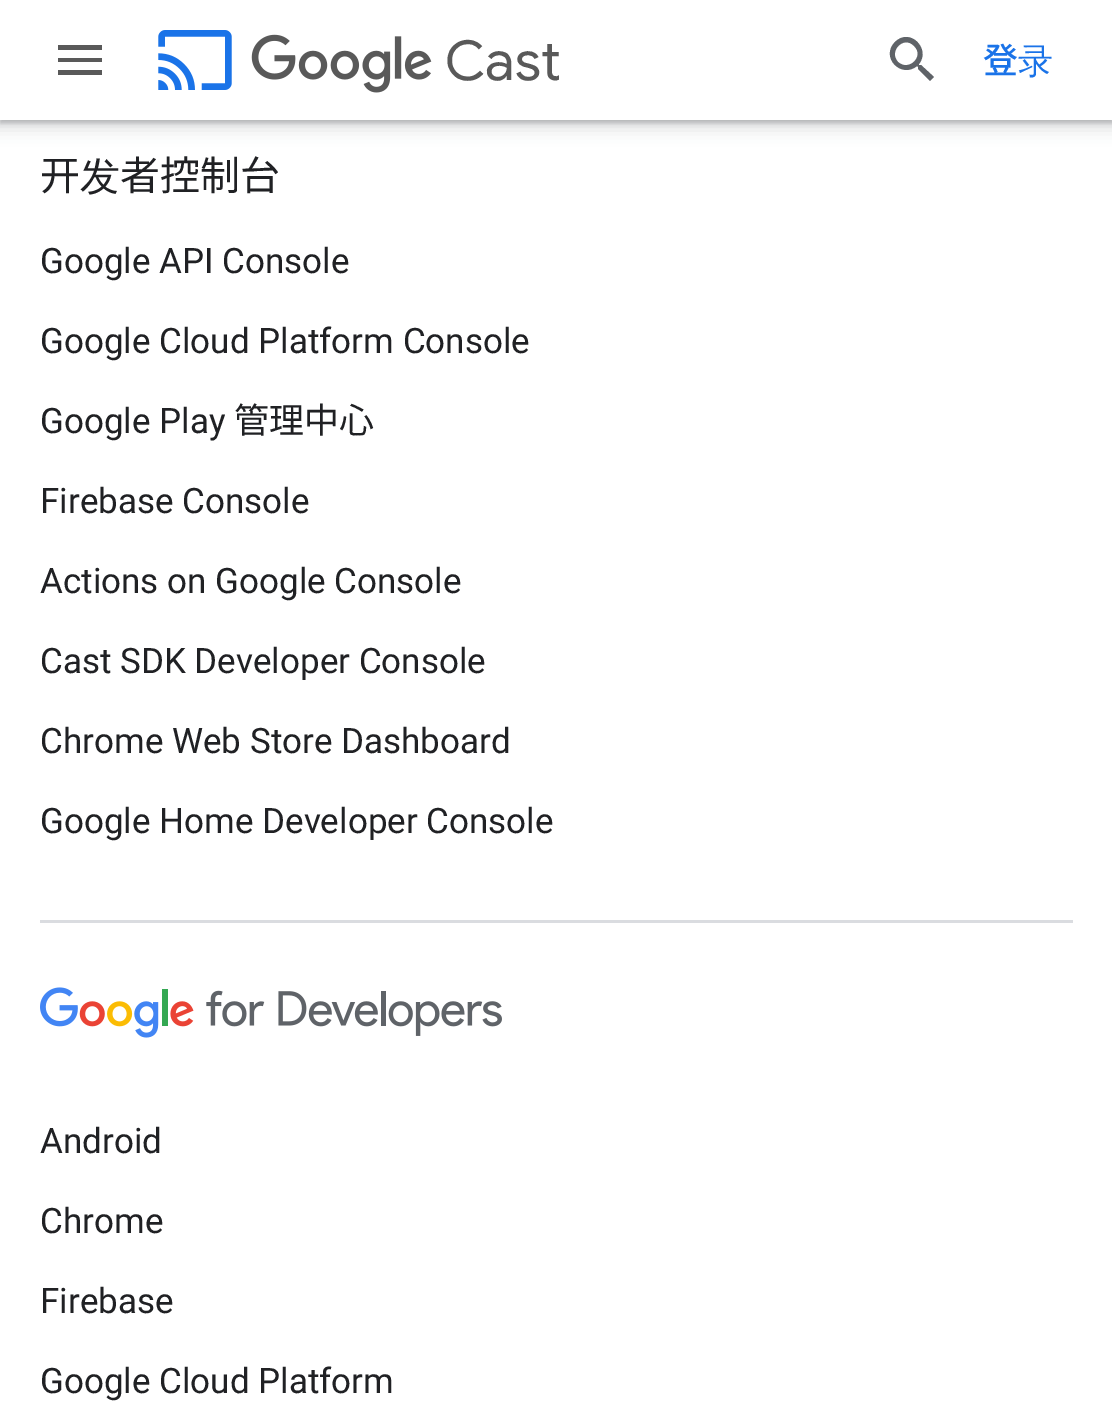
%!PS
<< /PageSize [1112 1410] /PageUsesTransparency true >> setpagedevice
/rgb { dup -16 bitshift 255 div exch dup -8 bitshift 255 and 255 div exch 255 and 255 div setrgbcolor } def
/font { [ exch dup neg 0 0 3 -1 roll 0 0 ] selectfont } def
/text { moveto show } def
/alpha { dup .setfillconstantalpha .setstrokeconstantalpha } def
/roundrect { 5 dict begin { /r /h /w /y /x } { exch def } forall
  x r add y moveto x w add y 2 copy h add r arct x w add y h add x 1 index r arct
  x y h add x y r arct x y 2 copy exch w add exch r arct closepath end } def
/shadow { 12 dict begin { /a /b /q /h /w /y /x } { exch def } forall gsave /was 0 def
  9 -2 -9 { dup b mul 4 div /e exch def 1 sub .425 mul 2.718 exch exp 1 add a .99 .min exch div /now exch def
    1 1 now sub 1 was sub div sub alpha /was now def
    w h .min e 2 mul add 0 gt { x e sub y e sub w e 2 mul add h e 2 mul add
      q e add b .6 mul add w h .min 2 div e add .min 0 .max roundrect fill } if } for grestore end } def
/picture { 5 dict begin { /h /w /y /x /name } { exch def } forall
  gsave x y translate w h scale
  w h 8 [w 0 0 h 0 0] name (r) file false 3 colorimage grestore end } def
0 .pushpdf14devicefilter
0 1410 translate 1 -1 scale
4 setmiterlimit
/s1 { /GoogleSans-Regular 55 font 16#595959 rgb } def
/s2 { /NotoSansJP-Medium 35 font 16#1A73E8 rgb } def
/s3 { /WenQuanYiZenHei-Medium 35 font 16#1A73E8 rgb } def
/s4 { /NotoSansJP-Regular 40 font 16#202124 rgb } def
/s5 { /WenQuanYiZenHei-Medium 40 font 16#202124 rgb } def
/s6 { /Roboto-Regular 35 font 16#202124 rgb } def
/s7 { /NotoSansJP-Regular 35 font 16#202124 rgb } def
16#FFFFFF rgb
0 0 1112 1410 rectfill
16#3C4043 rgb
-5 -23 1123 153 0 7.5 0.15 shadow
0 -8 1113 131 0 2.5 0.3 shadow
16#FFFFFF rgb
0 0 1112 120 rectfill
16#595959 rgb
58 45 moveto 102 45 lineto 102 50 lineto 58 50 lineto closepath 58 62 moveto 58 58 lineto 102 58 lineto 102 62 lineto closepath 58 75 moveto 58 70 lineto 102 70 lineto 102 75 lineto closepath fill
(pic1.raw) 158 30 74 60 picture
(pic2.raw) 251 34 181 59 picture
s1
(Cast) 445 80 text
16#5F6368 rgb
898 62 moveto 909 72 925 56 914 46 curveto 904 35 888 51 898 62 curveto closepath 921 65 moveto 934 77 lineto 930 81 lineto 918 69 lineto 918 67 lineto 917 66 lineto 901 79 880 57 895 42 curveto 910 27 931 49 919 64 curveto 919 65 lineto closepath fill
s2
(登) 983 73 text
s3
(录) 1018 73 text
16#DADCE0 rgb
40 920 1033 3 rectfill
s4
(开) 40 190 text
s5
(发) 80 190 text
s4
(者控制台) 120 190 text
s6
(Google API Console) 40 273 text
(Google Cloud Platform Console) 40 353 text
(Google Play) 40 433 text
s7
(管理中心) 234 433 text
s6
(Firebase Console) 40 513 text
(Actions on Google Console) 40 593 text
(Cast SDK Developer Console) 40 673 text
(Chrome Web Store Dashboard) 40 753 text
(Google Home Developer Console) 40 833 text
(pic3.raw) 40 987 462 51 picture
(Android) 40 1153 text
(Chrome) 40 1233 text
(Firebase) 40 1313 text
(Google Cloud Platform) 40 1393 text
.poppdf14devicefilter showpage
